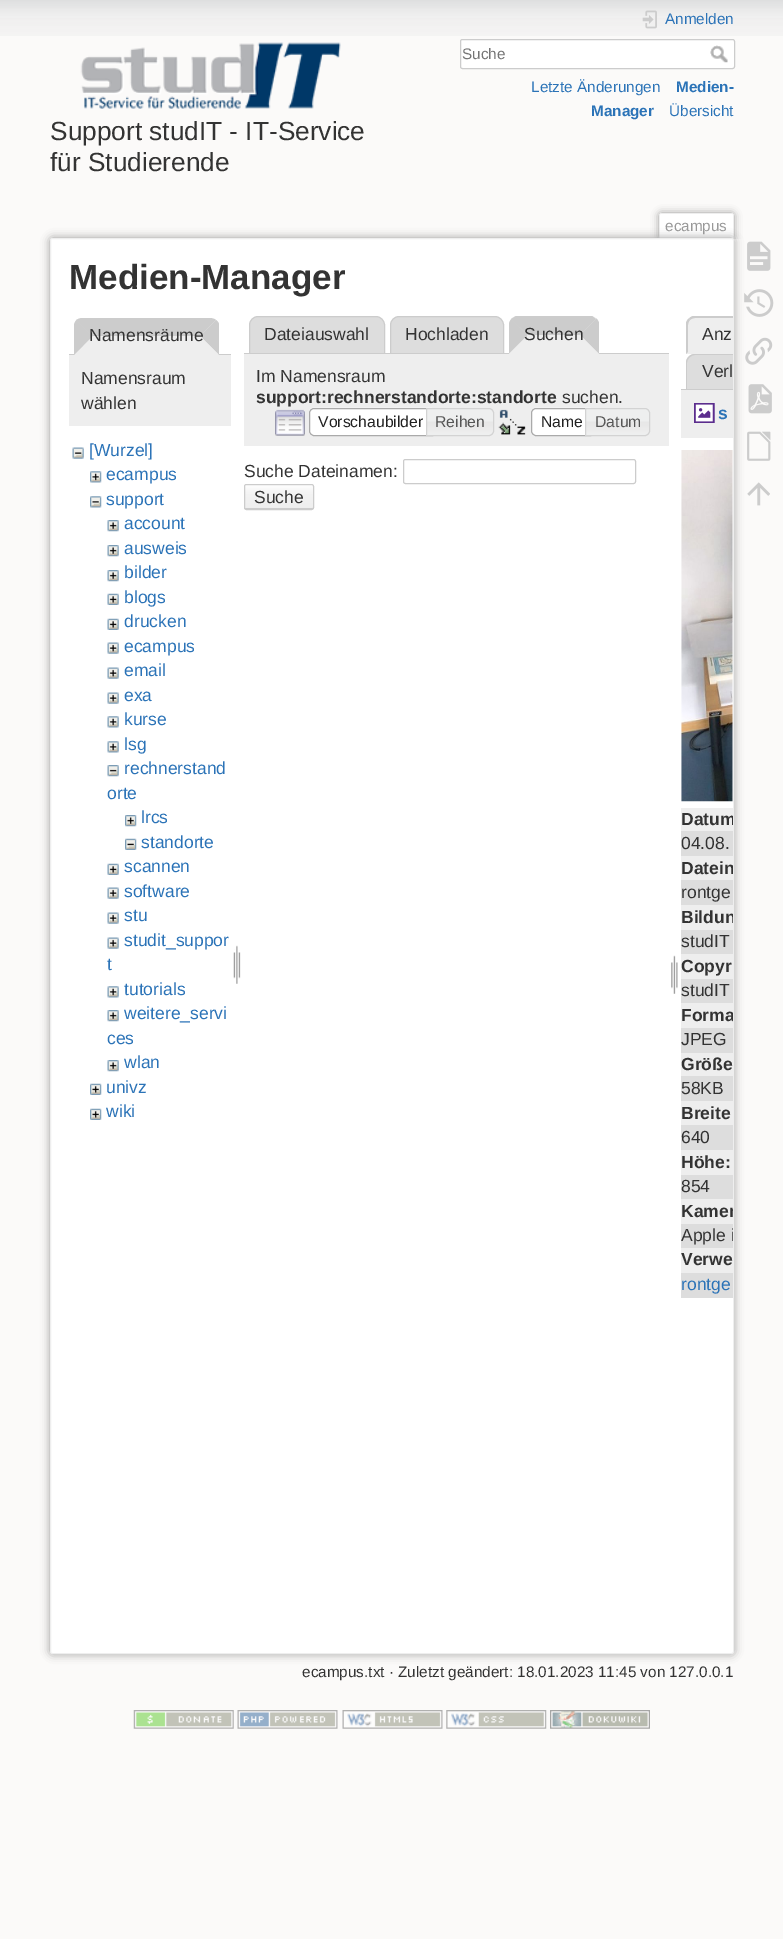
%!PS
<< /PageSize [783 1939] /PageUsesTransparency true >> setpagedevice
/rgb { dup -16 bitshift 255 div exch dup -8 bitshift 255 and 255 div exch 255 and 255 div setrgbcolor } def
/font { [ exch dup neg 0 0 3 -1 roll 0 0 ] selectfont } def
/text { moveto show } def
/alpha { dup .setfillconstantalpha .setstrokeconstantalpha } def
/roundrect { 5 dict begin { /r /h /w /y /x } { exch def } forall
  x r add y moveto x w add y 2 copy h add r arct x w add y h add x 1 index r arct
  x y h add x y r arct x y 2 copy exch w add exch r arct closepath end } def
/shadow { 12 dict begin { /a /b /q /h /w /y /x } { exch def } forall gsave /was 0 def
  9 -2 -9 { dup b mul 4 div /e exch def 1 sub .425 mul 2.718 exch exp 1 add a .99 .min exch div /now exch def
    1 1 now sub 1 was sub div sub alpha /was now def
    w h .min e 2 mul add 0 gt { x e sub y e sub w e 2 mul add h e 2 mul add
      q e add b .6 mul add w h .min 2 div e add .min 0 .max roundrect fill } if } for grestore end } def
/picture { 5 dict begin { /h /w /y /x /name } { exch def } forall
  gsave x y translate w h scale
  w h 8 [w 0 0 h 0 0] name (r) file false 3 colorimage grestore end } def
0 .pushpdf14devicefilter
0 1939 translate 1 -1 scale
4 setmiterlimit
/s1 { /LiberationSans-Regular 15.3 font 16#2B73B7 rgb } def
/s2 { /LiberationSans-Regular 15.3 font 16#757575 rgb } def
/s3 { /LiberationSans-Bold 15.3 font 16#2B73B7 rgb } def
/s4 { /LiberationSans-Regular 26.25 font 16#333333 rgb } def
/s5 { /LiberationSans-Regular 15.3 font 16#999999 rgb } def
/s6 { /LiberationSans-Bold 35 font 16#333333 rgb } def
/s7 { /LiberationSans-Regular 17.5 font 16#333333 rgb } def
/s8 { /LiberationSans-Regular 17.5 font 16#2B73B7 rgb } def
/s9 { /LiberationSans-Bold 17.5 font 16#333333 rgb } def
/s10 { /LiberationSans-Regular 15.75 font 16#212121 rgb } def
/s11 { /LiberationSans-Regular 15.75 font 16#555555 rgb } def
/s12 { /LiberationSans-Bold 17.5 font 16#2B73B7 rgb } def
/s13 { /LiberationSans-Regular 15.3 font 16#333333 rgb } def
16#FBFAF9 rgb
0 0 783 1939 rectfill
(pic1.raw) 0 0 783 36 picture
(pic2.raw) 642 10 15 19 picture
s1
(Anmelden) 665 24 text
16#FFFFFF rgb
460.5 39.5 274 29 2 roundrect gsave fill grestore
16#CCCCCC rgb
stroke
s2
(Suche) 462 59 text
(pic3.raw) 710 45 18 18 picture
s1
(Letzte Änderungen) 531 92 text
s3
(Medien-) 676 92 text
(Manager) 591 116 text
s1
(Übersicht) 669 116 text
(pic4.raw) 80 42 261 67 picture
s4
(Support studIT - IT-Service) 50 140 text
(für Studierende) 50 171 text
gsave
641 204 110 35 rectclip
16#999999 rgb
659 213 75 26 2.5 4 1 shadow
grestore
16#FFFFFF rgb
661 214 moveto 732 214 lineto 732.5 214 733 214.5 733 215 curveto 733 239 lineto 660 239 lineto 660 215 lineto 660 214.5 660.5 214 661 214 curveto closepath fill
16#EEEEEE rgb
660 213 73 1 rectfill
733 214 1 25 rectfill
659 214 1 25 rectfill
s5
(ecampus) 665 231 text
50 238 684 1416 2.5 4.5 1 shadow
16#FFFFFF rgb
50.5 238.5 683 1415 2 roundrect gsave fill grestore
16#EEEEEE rgb
stroke
s6
(Medien-Manager) 69 289 text
16#CCCCCC rgb
82 318 moveto 80 318 78 319 76 320 curveto 92 336 lineto 200 336 lineto 216 320 lineto 215 319 212 318 210 318 curveto closepath fill
69 354 162 1 rectfill
219 324 moveto 219 355 lineto 200 336 lineto 216 320 lineto 217.5 321 218.5 322.5 219 324 curveto closepath fill
16#EEEEEE rgb
219 355 moveto 200 336 lineto 92 336 lineto 74 355 lineto closepath fill
16#CCCCCC rgb
76.5 320 moveto 75 321.5 74 323.5 74 326 curveto 74 355 lineto 92.5 336 lineto closepath fill
s7
(Namensräume) 89 341 text
16#EEEEEE rgb
69 355 162 71 rectfill
s7
(Namensraum) 81 384 text
(wählen) 81 409 text
(pic5.raw) 72 447 12 12 picture
s8
([Wurzel]) 89 456 text
(pic6.raw) 90 471 12 12 picture
(ecampus) 106 480 text
(pic7.raw) 90 496 12 12 picture
(support) 106 505 text
(pic8.raw) 107 520 12 12 picture
(account) 124 529 text
(pic8.raw) 107 545 12 12 picture
(ausweis) 124 554 text
(pic8.raw) 107 570 12 12 picture
(bilder) 124 578 text
(pic9.raw) 107 593 12 12 picture
(blogs) 124 603 text
(pic9.raw) 107 618 12 12 picture
(drucken) 124 627 text
(pic10.raw) 107 642 12 12 picture
(ecampus) 124 652 text
(pic10.raw) 107 667 12 12 picture
(email) 124 676 text
(pic10.raw) 107 692 12 12 picture
(exa) 124 701 text
(pic11.raw) 107 716 12 12 picture
(kurse) 124 725 text
(pic11.raw) 107 741 12 12 picture
(lsg) 124 750 text
(pic12.raw) 107 765 12 12 picture
(rechnerstand) 124 774 text
(orte) 107 799 text
(pic13.raw) 125 815 12 12 picture
(lrcs) 141 823 text
(pic14.raw) 125 838 12 12 picture
(standorte) 141 848 text
(pic9.raw) 107 863 12 12 picture
(scannen) 124 872 text
(pic10.raw) 107 887 12 12 picture
(software) 124 897 text
(pic10.raw) 107 912 12 12 picture
(stu) 124 921 text
(pic10.raw) 107 937 12 12 picture
(studit_suppor) 124 946 text
(t) 107 970 text
(pic11.raw) 107 986 12 12 picture
(tutorials) 124 995 text
(pic8.raw) 107 1010 12 12 picture
(weitere_servi) 124 1019 text
(ces) 107 1044 text
(pic8.raw) 107 1060 12 12 picture
(wlan) 124 1068 text
(pic15.raw) 90 1083 12 12 picture
(univz) 106 1093 text
(pic15.raw) 90 1108 12 12 picture
(wiki) 106 1117 text
(pic16.raw) 233 945 8 39 picture
16#DDDDDD rgb
258 316.5 moveto 376 316.5 lineto 380.5 316.5 384.5 320.5 384.5 325 curveto 384.5 353.5 lineto 249.5 353.5 lineto 249.5 325 lineto 249.5 320.5 253.5 316.5 258 316.5 curveto closepath gsave fill grestore
16#CCCCCC rgb
stroke
s7
(Dateiauswahl) 264 340 text
16#DDDDDD rgb
399 316.5 moveto 495 316.5 lineto 499.5 316.5 503.5 320.5 503.5 325 curveto 503.5 353.5 lineto 390.5 353.5 lineto 390.5 325 lineto 390.5 320.5 394.5 316.5 399 316.5 curveto closepath gsave fill grestore
16#CCCCCC rgb
stroke
s7
(Hochladen) 405 340 text
16#CCCCCC rgb
244 353 425 1 rectfill
16#EEEEEE rgb
518 316 moveto 590 316 lineto 595 316 599 320 599 325 curveto 599 354 lineto 509 354 lineto 509 325 lineto 509 320 513 316 518 316 curveto closepath fill
16#CCCCCC rgb
592 316 moveto 516 316 lineto 514 317 513 318 511 319 curveto 528 335 lineto 580 335 lineto 596 319 lineto closepath fill
596.5 318.5 moveto 580 335 lineto 599 354 lineto 599 323 lineto 598.5 321 597.5 320 596.5 318.5 curveto closepath fill
16#EEEEEE rgb
599 354 moveto 580 335 lineto 528 335 lineto 509 354 lineto closepath fill
16#CCCCCC rgb
509 353.5 moveto 527.5 335 lineto 511.5 319 lineto 510 320.5 509 322.5 509 325 curveto closepath fill
s7
(Suchen) 524 340 text
16#EEEEEE rgb
244 354 425 92 rectfill
s7
(Im Namensraum) 256 382 text
s9
(support:rechnerstandorte:standorte) 256 403 text
s7
(suchen.) 562 403 text
(pic17.raw) 275 409 30 27 picture
(pic18.raw) 309 407 123 29 picture
16#AAAAAA rgb
314 408.5 moveto 432.5 408.5 lineto 432.5 435.5 lineto 314 435.5 lineto 311.5 435.5 309.5 433.5 309.5 431 curveto 309.5 413 lineto 309.5 410.5 311.5 408.5 314 408.5 curveto closepath stroke
s10
(Vorschaubilder) 318 427 text
(pic19.raw) 427 408 67 28 picture
16#D3D3D3 rgb
426.5 408.5 moveto 489 408.5 lineto 491.5 408.5 493.5 410.5 493.5 413 curveto 493.5 431 lineto 493.5 433.5 491.5 435.5 489 435.5 curveto 426.5 435.5 lineto closepath stroke
s11
(Reihen) 435 427 text
(pic20.raw) 498 409 28 26 picture
16#FFFFFF rgb
536 408 moveto 591 408 lineto 591 436 lineto 536 436 lineto 533 436 531 434 531 431 curveto 531 413 lineto 531 410 533 408 536 408 curveto closepath fill
(pic21.raw) 532 407 59 3 picture
16#AAAAAA rgb
536 408.5 moveto 590.5 408.5 lineto 590.5 435.5 lineto 536 435.5 lineto 533.5 435.5 531.5 433.5 531.5 431 curveto 531.5 413 lineto 531.5 410.5 533.5 408.5 536 408.5 curveto closepath stroke
s10
(Name) 541 427 text
(pic22.raw) 586 408 64 28 picture
16#D3D3D3 rgb
585.5 408.5 moveto 645 408.5 lineto 647.5 408.5 649.5 410.5 649.5 413 curveto 649.5 431 lineto 649.5 433.5 647.5 435.5 645 435.5 curveto 585.5 435.5 lineto closepath stroke
s11
(Datum) 595 427 text
s7
(Suche Dateinamen:) 244 477 text
16#CCCCCC rgb
403.5 459.5 232 24 2 roundrect stroke
gsave
244 484 70 26 2.5 roundrect clip newpath
gsave 244 485 moveto 314 485 lineto 314 509 lineto 244 509 lineto closepath clip newpath
<< /ShadingType 2 /ColorSpace /DeviceRGB /Coords [279 485 279 509] /Extend [true true] /Function << /FunctionType 3 /Domain [0 1] /Functions [<< /FunctionType 2 /Domain [0 1] /C0 [1 1 1] /C1 [0.957 0.957 0.957] /N 1 >> << /FunctionType 2 /Domain [0 1] /C0 [0.957 0.957 0.957] /C1 [0.933 0.933 0.933] /N 1 >> << /FunctionType 2 /Domain [0 1] /C0 [0.8 0.8 0.8] /C1 [0.8 0.8 0.8] /N 1 >>] /Bounds [0.3 0.99] /Encode [0 1 0 1 0 1] >> >> shfill grestore
grestore
244.5 484.5 69 25 2 roundrect stroke
s7
(Suche) 254 503 text
(pic23.raw) 671 955 7 39 picture
16#EEEEEE rgb
695 316 moveto 733 316 lineto 733 354 lineto 686 354 lineto 686 325 lineto 686 320 690 316 695 316 curveto closepath fill
16#CCCCCC rgb
733 316 moveto 693 316 lineto 691 317 690 317 689 319 curveto 690 320 lineto 691 319 693 318 695 318 curveto 733 318 lineto closepath fill
686 354 moveto 688 352 lineto 688 325 lineto 688 323 689 321 690 320 curveto 688.5 318.5 lineto 687.5 320 686.5 321 686 323 curveto closepath fill
s7
(Anz) 702 340 text
16#DDDDDD rgb
695 354 moveto 733 354 lineto 733 390 lineto 686 390 lineto 686 363 lineto 686 358 690 354 695 354 curveto closepath fill
16#CCCCCC rgb
695 354 moveto 690 354 686 358 686 363 curveto 686 390 lineto 733 390 lineto 733 389 lineto 687 389 lineto 687 363 lineto 687 359 691 355 695 355 curveto 733 355 lineto 733 354 lineto closepath fill
s7
(Verl) 702 377 text
16#CCCCCC rgb
681 389 5 1 rectfill
16#EEEEEE rgb
681 390 52 48 rectfill
(pic24.raw) 694 403 21 20 picture
s12
(s) 718 419 text
(pic25.raw) 681 450 52 352 picture
16#EEEEEE rgb
681 808 52 23 rectfill
gsave
51 239 682 1414 1 roundrect clip newpath
s9
(Datum) 681 825 text
grestore
16#DDDDDD rgb
681 831 52 25 rectfill
s7
(04.08.) 681 849 text
16#EEEEEE rgb
681 856 52 24 rectfill
gsave
51 239 682 1414 1 roundrect clip newpath
s9
(Datein) 681 874 text
grestore
16#DDDDDD rgb
681 880 52 25 rectfill
s7
(rontge) 681 898 text
16#EEEEEE rgb
681 905 52 25 rectfill
gsave
51 239 682 1414 1 roundrect clip newpath
s9
(Bildun) 681 923 text
grestore
16#DDDDDD rgb
681 930 52 24 rectfill
s7
(studIT) 681 947 text
16#EEEEEE rgb
681 954 52 25 rectfill
s9
(Copyr) 681 972 text
16#DDDDDD rgb
681 979 52 24 rectfill
s7
(studIT) 681 996 text
16#EEEEEE rgb
681 1003 52 25 rectfill
gsave
51 239 682 1414 1 roundrect clip newpath
s9
(Forma) 681 1021 text
grestore
16#DDDDDD rgb
681 1028 52 25 rectfill
s7
(JPEG) 681 1045 text
16#EEEEEE rgb
681 1053 52 23 rectfill
s9
(Größe) 681 1070 text
16#DDDDDD rgb
681 1076 52 25 rectfill
s7
(58KB) 681 1094 text
16#EEEEEE rgb
681 1101 52 24 rectfill
s9
(Breite) 681 1119 text
16#DDDDDD rgb
681 1125 52 25 rectfill
s7
(640) 681 1143 text
16#EEEEEE rgb
681 1150 52 25 rectfill
s9
(Höhe:) 681 1168 text
16#DDDDDD rgb
681 1175 52 24 rectfill
s7
(854) 681 1192 text
16#EEEEEE rgb
681 1199 52 25 rectfill
gsave
51 239 682 1414 1 roundrect clip newpath
s9
(Kamer) 681 1217 text
grestore
16#DDDDDD rgb
681 1224 52 24 rectfill
gsave
51 239 682 1414 1 roundrect clip newpath
s7
(Apple i) 681 1241 text
grestore
16#EEEEEE rgb
681 1248 52 25 rectfill
s9
(Verwe) 681 1265 text
16#DDDDDD rgb
681 1273 52 25 rectfill
s8
(rontge) 681 1290 text
s13
(ecampus.txt · Zuletzt geändert: 18.01.2023 11:45 von 127.0.0.1) 302 1677 text
(pic26.raw) 747 241 24 30 picture
(pic27.raw) 744 289 30 28 picture
(pic28.raw) 745 337 28 28 picture
(pic29.raw) 748 384 24 30 picture
(pic30.raw) 747 431 24 30 picture
(pic31.raw) 747 482 23 24 picture
(pic32.raw) 133 1710 101 19 picture
(pic33.raw) 237 1710 101 19 picture
(pic34.raw) 342 1710 101 19 picture
(pic35.raw) 446 1710 101 19 picture
(pic36.raw) 550 1710 100 19 picture
.poppdf14devicefilter showpage
